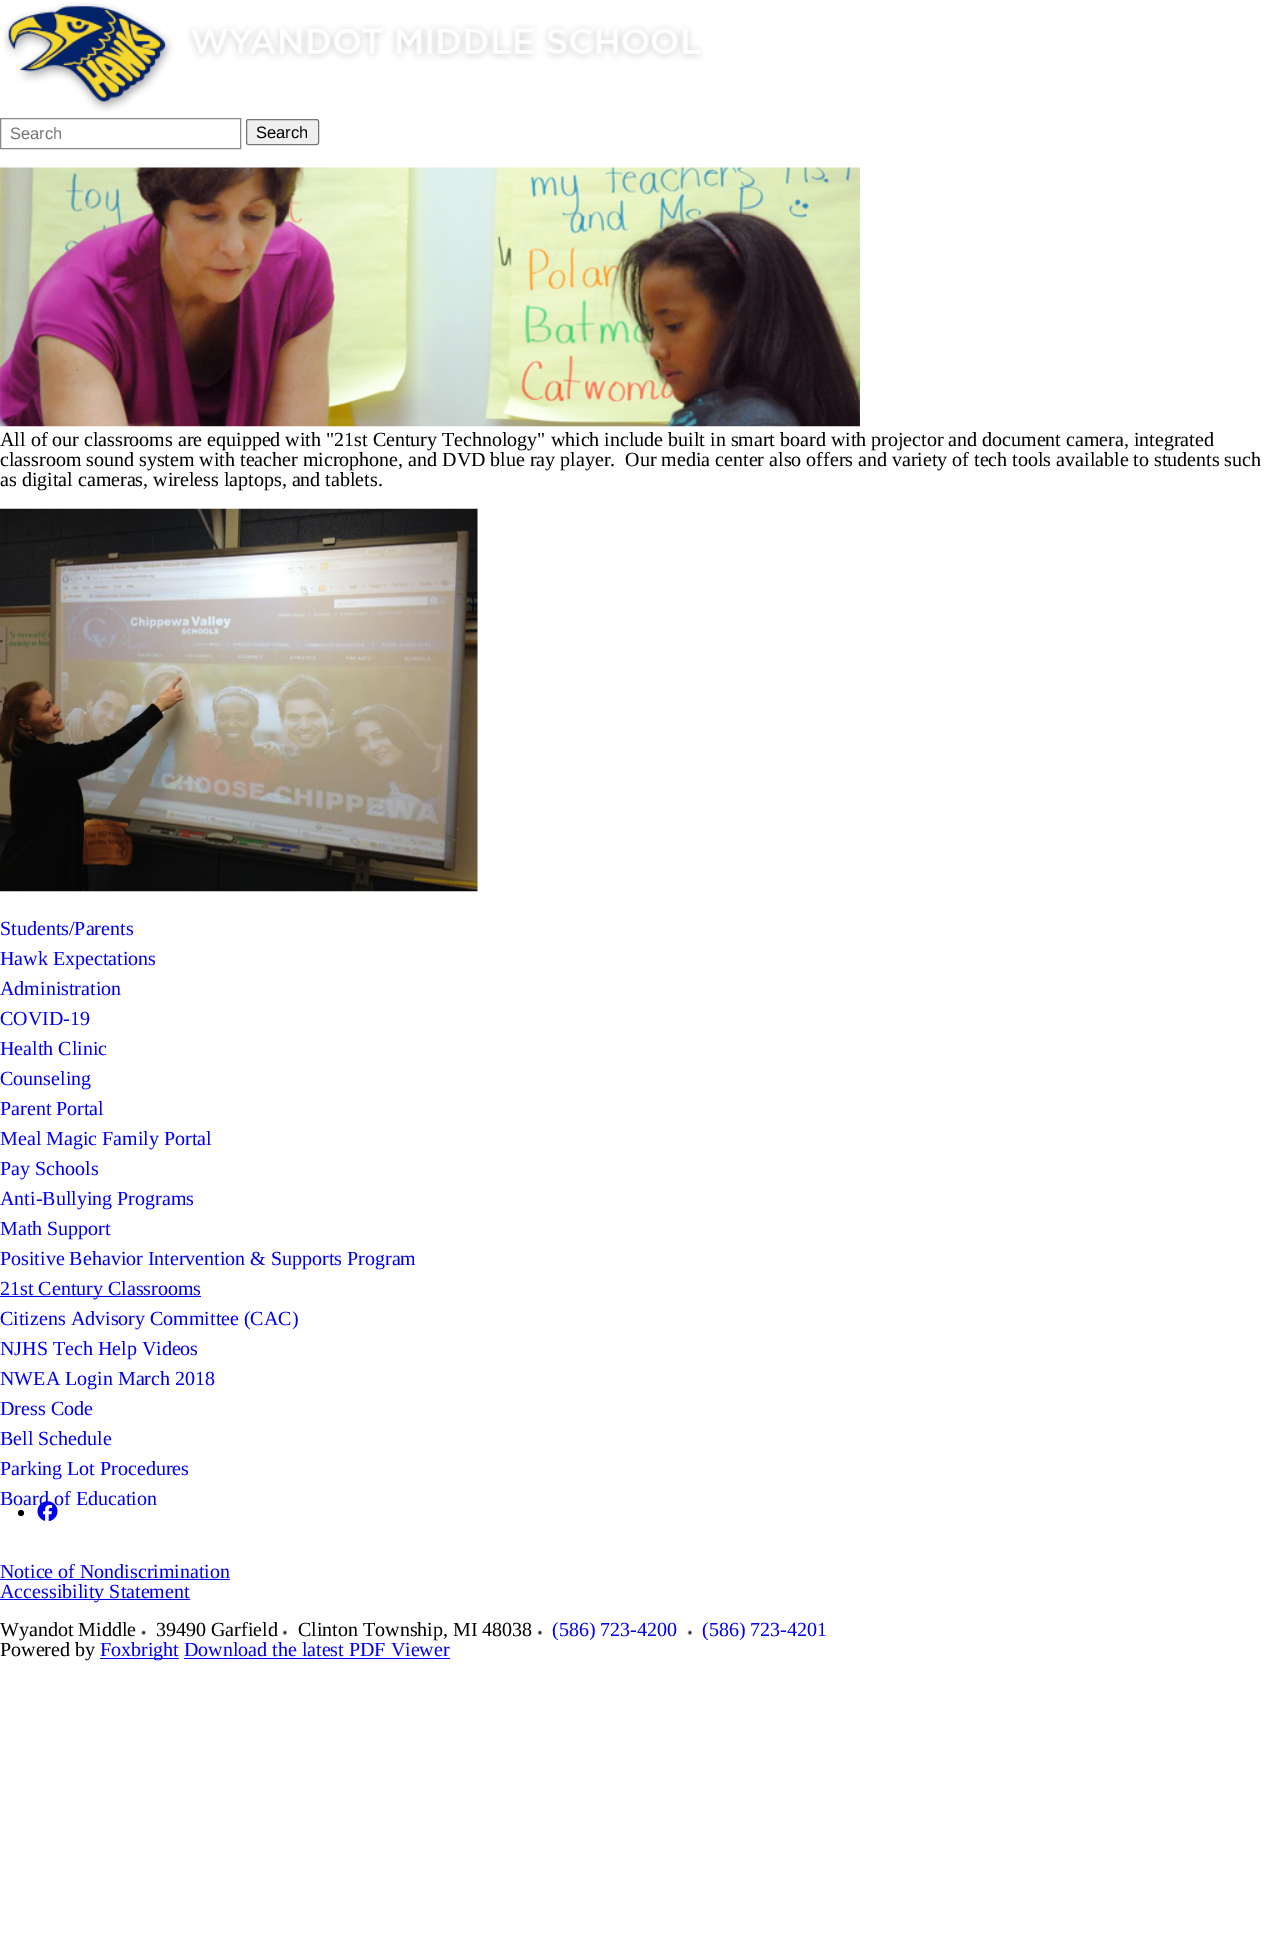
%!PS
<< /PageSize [1271 1959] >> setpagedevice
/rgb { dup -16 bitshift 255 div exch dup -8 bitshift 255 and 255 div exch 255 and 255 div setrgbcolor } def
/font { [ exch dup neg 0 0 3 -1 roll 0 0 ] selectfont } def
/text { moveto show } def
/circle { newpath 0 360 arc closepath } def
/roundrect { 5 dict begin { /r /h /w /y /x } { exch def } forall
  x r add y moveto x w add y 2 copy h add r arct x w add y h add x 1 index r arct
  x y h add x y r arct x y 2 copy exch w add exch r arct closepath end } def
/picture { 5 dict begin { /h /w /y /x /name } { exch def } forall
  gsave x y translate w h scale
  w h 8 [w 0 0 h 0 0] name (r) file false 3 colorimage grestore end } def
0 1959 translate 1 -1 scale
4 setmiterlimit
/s1 { /LiberationSans-Regular 16.5 font 16#757575 rgb } def
/s2 { /LiberationSans-Regular 16.5 font 16#000000 rgb } def
/s3 { /LiberationSerif-Regular 20 font 16#000000 rgb } def
/s4 { /LiberationSerif-Regular 20 font 16#0000EE rgb } def
16#FFFFFF rgb
0 0 1271 1959 rectfill
(pic1.raw) 3 2 700 110 picture
16#888888 rgb
0.5 118.5 240 30 rectstroke
s1
(Search) 10 139 text
16#EFEFEF rgb
246.5 119.5 72 25 2 roundrect gsave fill grestore
16#767676 rgb
stroke
s2
(Search) 256 138 text
(pic2.raw) 0 167 860 260 picture
s3
(All of our classrooms are equipped with "21st Century Technology" which include built in smart board with projector and document camera, integrated) 0 446 text
(classroom sound system with teacher microphone, and DVD blue ray player.  Our media center also offers and variety of tech tools available to students such) 0 466 text
(as digital cameras, wireless laptops, and tablets.) 0 486 text
(pic3.raw) 0 508 478 384 picture
s4
(Students/Parents) 0 935 text
(Hawk Expectations) 0 965 text
(Administration) 0 995 text
(COVID-19) 0 1025 text
(Health Clinic) 0 1055 text
(Counseling) 0 1085 text
(Parent Portal) 0 1115 text
(Meal Magic Family Portal) 0 1145 text
(Pay Schools) 0 1175 text
(Anti-Bullying Programs) 0 1205 text
(Math Support) 0 1235 text
(Positive Behavior Intervention & Supports Program) 0 1265 text
0 1296 201 1 rectfill
(21st Century Classrooms) 0 1295 text
(Citizens Advisory Committee \(CAC\)) 0 1325 text
(NJHS Tech Help Videos) 0 1355 text
(NWEA Login March 2018) 0 1385 text
(Dress Code) 0 1415 text
(Bell Schedule) 0 1445 text
(Parking Lot Procedures) 0 1475 text
(Board of Education) 0 1505 text
16#000000 rgb
21 1513 3 circle fill
(pic4.raw) 37 1501 21 21 picture
s4
(Notice of Nondiscrimination) 0 1578 text
0 1579 230 1 rectfill
0 1599 190 1 rectfill
(Accessibility Statement) 0 1598 text
s3
(Wyandot Middle) 0 1636 text
(pic5.raw) 141 1630 5 5 picture
(39490 Garfield) 156 1636 text
(pic6.raw) 282 1630 6 5 picture
(Clinton Township, MI 48038) 298 1636 text
(pic6.raw) 537 1630 6 5 picture
s4
(\(586\) 723-4200) 552 1636 text
(pic6.raw) 687 1630 6 5 picture
(\(586\) 723-4201) 702 1636 text
s3
(Powered by) 0 1656 text
16#0000EE rgb
100 1658 79 1 rectfill
(Foxbright Download the latest PDF Viewer) 100 1656 text
184 1658 266 1 rectfill
showpage
